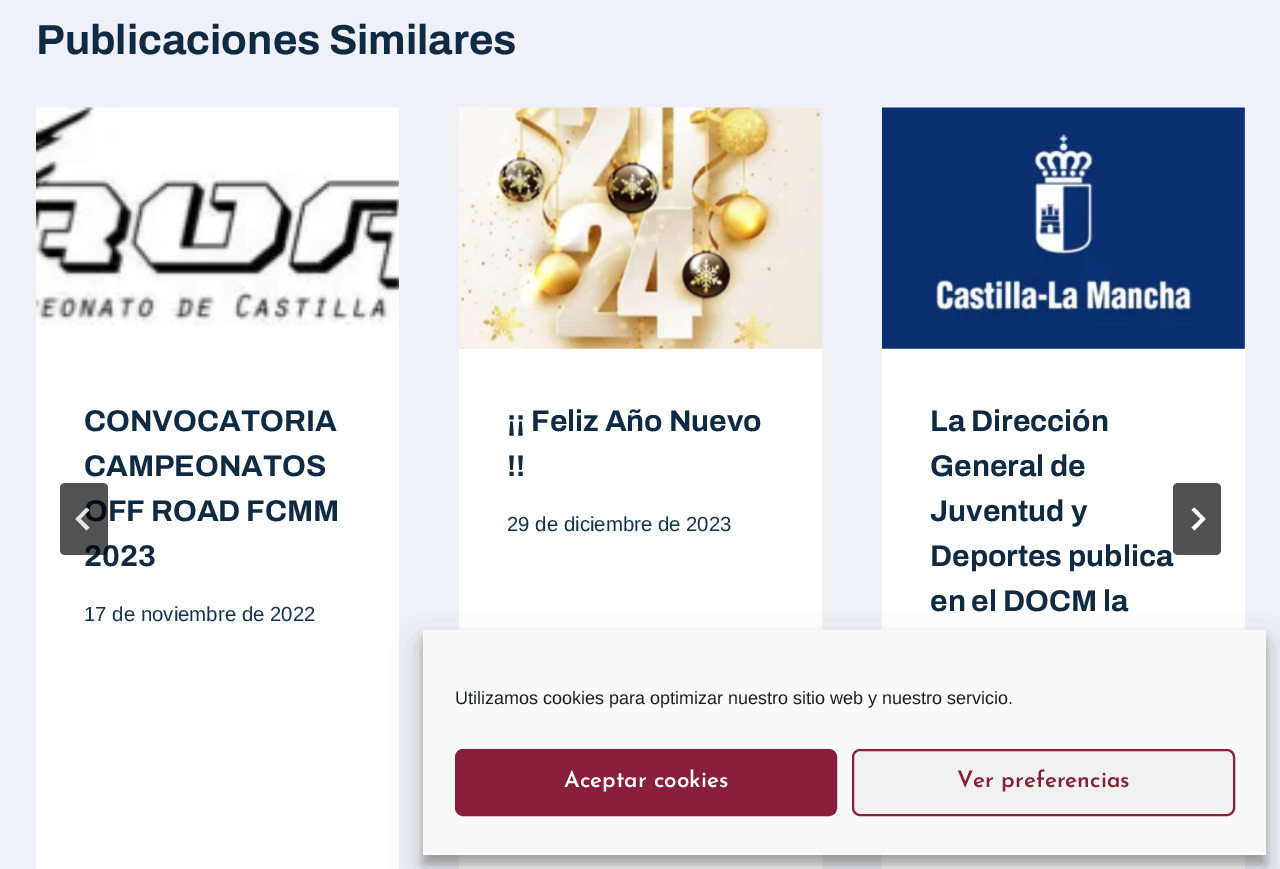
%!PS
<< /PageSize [1280 869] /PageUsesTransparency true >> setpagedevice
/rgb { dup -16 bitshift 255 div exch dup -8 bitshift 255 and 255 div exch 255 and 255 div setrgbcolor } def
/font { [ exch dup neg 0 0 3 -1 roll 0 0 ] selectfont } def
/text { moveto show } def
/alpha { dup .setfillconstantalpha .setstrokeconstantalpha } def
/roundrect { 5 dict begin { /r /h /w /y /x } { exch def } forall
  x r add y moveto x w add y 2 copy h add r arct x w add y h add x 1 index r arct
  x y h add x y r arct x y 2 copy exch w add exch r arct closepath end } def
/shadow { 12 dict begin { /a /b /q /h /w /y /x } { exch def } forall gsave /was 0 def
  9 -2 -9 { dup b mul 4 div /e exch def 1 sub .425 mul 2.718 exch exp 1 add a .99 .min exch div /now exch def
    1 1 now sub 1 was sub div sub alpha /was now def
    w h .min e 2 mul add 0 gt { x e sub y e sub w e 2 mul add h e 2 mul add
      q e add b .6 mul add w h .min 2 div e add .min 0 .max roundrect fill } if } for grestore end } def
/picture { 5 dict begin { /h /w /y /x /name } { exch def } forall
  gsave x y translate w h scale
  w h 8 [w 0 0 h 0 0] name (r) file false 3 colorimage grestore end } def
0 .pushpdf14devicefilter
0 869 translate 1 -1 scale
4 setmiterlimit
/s1 { /Archivo-Bold 42 font 16#0F2A43 rgb } def
/s2 { /Archivo-Bold 30 font 16#0F2A43 rgb } def
/s3 { /LiberationSans-Regular 20.4 font 16#133453 rgb } def
/s4 { /LiberationSans-Regular 18 font 16#191E23 rgb } def
/s5 { /JosefinSans-Thin 22.5 font 16#FFFFFF rgb } def
/s6 { /JosefinSans-Thin 22.5 font 16#882039 rgb } def
16#F0F0F8 rgb
0 0 1280 869 rectfill
s1
(Publicaciones Similares) 36 54 text
16#FFFFFF rgb
36 108 363 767 6 roundrect fill
(pic1.raw) 36 107 363 219 picture
s2
(CONVOCATORIA) 84 431 text
(CAMPEONATOS) 84 476 text
(OFF ROAD FCMM) 84 521 text
(2023) 84 566 text
s3
(17 de noviembre de 2022) 84 621 text
16#FFFFFF rgb
459 348 363 521 rectfill
(pic2.raw) 459 107 363 242 picture
s2
(¡¡ Feliz Año Nuevo) 507 431 text
(!!) 507 476 text
s3
(29 de diciembre de 2023) 507 531 text
16#FFFFFF rgb
882 108 363 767 6 roundrect fill
(pic3.raw) 882 107 363 242 picture
s2
(La Dirección) 930 431 text
(General de) 930 476 text
(Juventud y) 930 521 text
(Deportes publica) 930 566 text
(en el DOCM la) 930 611 text
0.68 alpha
16#000000 rgb
60 483 48 72 5 roundrect fill
0.85 alpha
16#FFFFFF rgb
86.5 507.5 moveto 89.5 510 lineto 80.5 519 lineto 89.5 527.5 lineto 86.5 530.5 lineto 75.5 519 lineto closepath fill
1 alpha
16#515151 rgb
1173 483 48 72 5 roundrect fill
16#FFFFFF rgb
1194.5 507.5 moveto 1191.5 510 lineto 1200.5 519 lineto 1191.5 527.5 lineto 1194.5 530.5 lineto 1205.5 519 lineto closepath fill
16#000000 rgb
423 639 843 225 0 4.5 0.23 shadow
423 645 843 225 0 15 0.19 shadow
16#F9F9F9 rgb
423 630 843 225 rectfill
s4
(Utilizamos cookies para optimizar nuestro sitio web y nuestro servicio.) 455 704 text
16#882039 rgb
456 750 380 65 7 roundrect gsave fill grestore
2 setlinewidth
stroke
s5
(Aceptar cookies) 564 787 text
16#F1F1F1 rgb
853 750 381 65 7 roundrect gsave fill grestore
16#882039 rgb
stroke
(Ver preferencias) 957 787 text
.poppdf14devicefilter showpage
